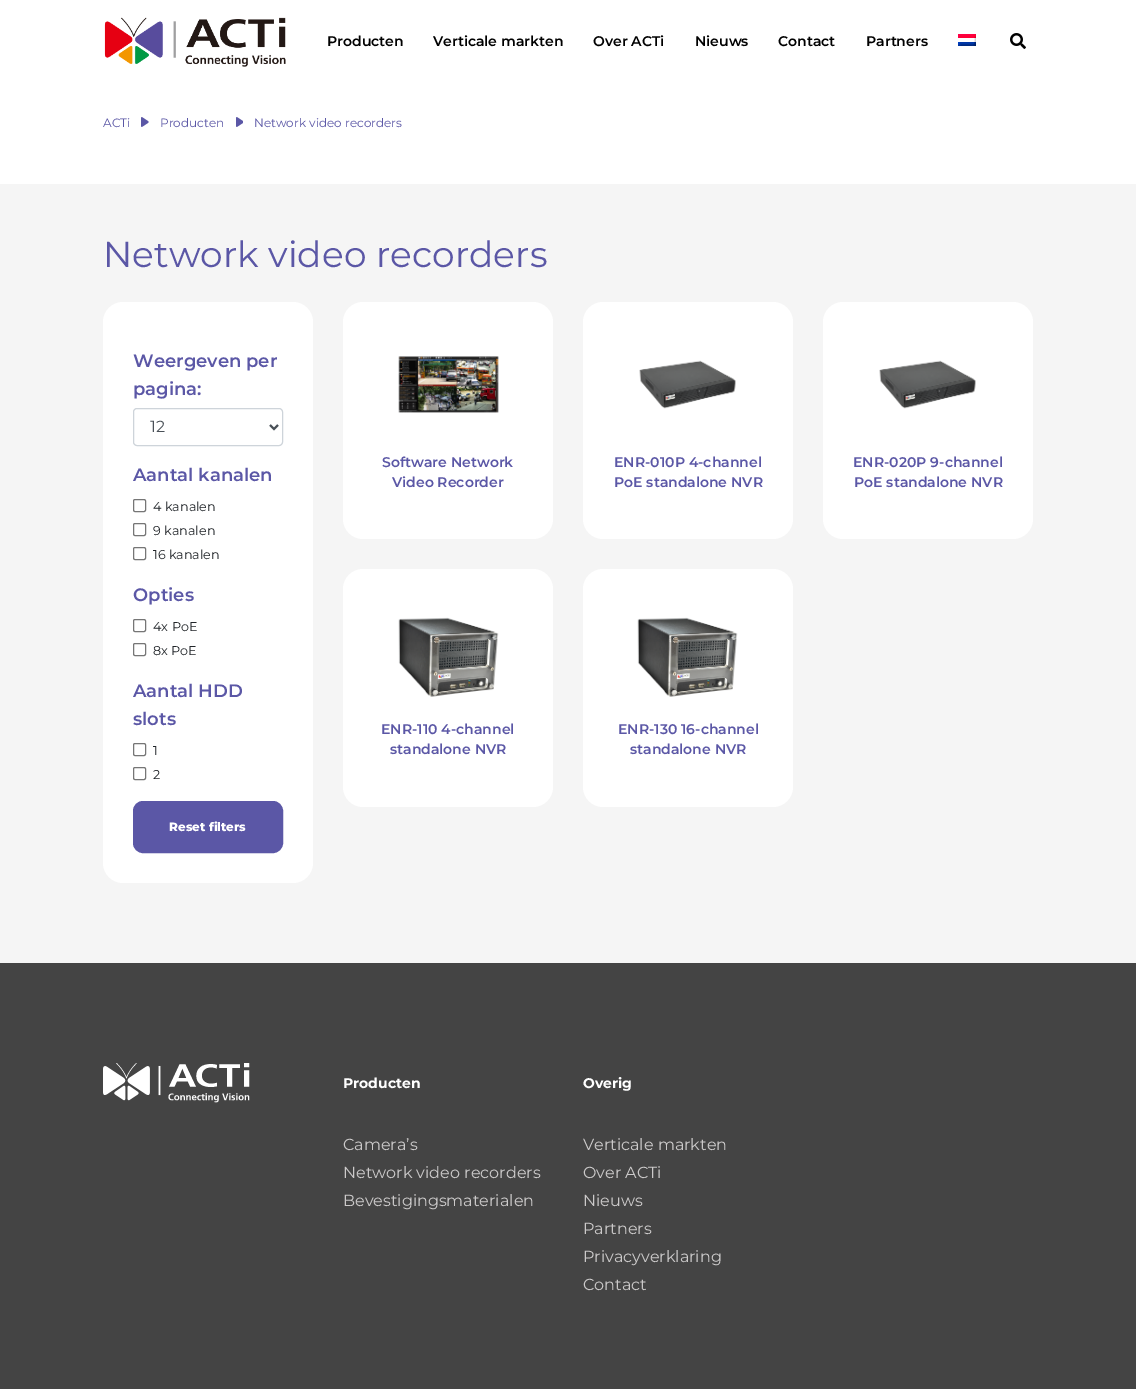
%!PS
<< /PageSize [1136 1389] >> setpagedevice
/rgb { dup -16 bitshift 255 div exch dup -8 bitshift 255 and 255 div exch 255 and 255 div setrgbcolor } def
/font { [ exch dup neg 0 0 3 -1 roll 0 0 ] selectfont } def
/text { moveto show } def
/roundrect { 5 dict begin { /r /h /w /y /x } { exch def } forall
  x r add y moveto x w add y 2 copy h add r arct x w add y h add x 1 index r arct
  x y h add x y r arct x y 2 copy exch w add exch r arct closepath end } def
/picture { 5 dict begin { /h /w /y /x /name } { exch def } forall
  gsave x y translate w h scale
  w h 8 [w 0 0 h 0 0] name (r) file false 3 colorimage grestore end } def
0 1389 translate 1 -1 scale
4 setmiterlimit
/s1 { /Montserrat-SemiBold 14 font 16#000000 rgb } def
/s2 { /Montserrat-Regular 12 font 16#5B57A6 rgb } def
/s3 { /Montserrat-Regular 36 font 16#5B57A6 rgb } def
/s4 { /Montserrat-SemiBold 18 font 16#5B57A6 rgb } def
/s5 { /Montserrat-Regular 16 font 16#495057 rgb } def
/s6 { /Montserrat-Regular 12.75 font 16#212529 rgb } def
/s7 { /Montserrat-ExtraBold 12 font 16#FFFFFF rgb } def
/s8 { /Montserrat-SemiBold 14 font 16#5B57A6 rgb } def
/s9 { /Montserrat-Bold 14 font 16#FFFFFF rgb } def
/s10 { /Montserrat-Regular 16 font 16#CCCACA rgb } def
16#FFFFFF rgb
0 0 1136 1389 rectfill
(pic1.raw) 104 17 182 50 picture
s1
(Producten) 327 46 text
(Verticale markten) 433 46 text
(Over ACTi) 593 46 text
(Nieuws) 695 46 text
(Contact) 778 46 text
(Partners) 866 46 text
(pic2.raw) 958 34 18 12 picture
(pic3.raw) 1010 33 16 16 picture
s2
(ACTi) 103 127 text
(pic4.raw) 141 117 8 10 picture
(Producten) 160 127 text
(pic5.raw) 236 117 7 10 picture
(Network video recorders) 254 127 text
16#F5F5F5 rgb
0 184 1136 779 rectfill
s3
(Network video recorders) 103 267 text
16#FFFFFF rgb
103 302 210 581 20 roundrect fill
s4
(Weergeven per) 133 367 text
(pagina:) 133 395 text
16#CED4DA rgb
133.5 408.5 149 37 3.5 roundrect stroke
16#495057 rgb
2 setlinewidth
270 425 moveto 274 429 lineto 278 425 lineto stroke
s5
(12) 150 432 text
s4
(Aantal kanalen) 133 481 text
16#767676 rgb
1 setlinewidth
133.5 499.5 12 12 1.5 roundrect stroke
s6
(4 kanalen) 153 511 text
16#767676 rgb
133.5 523.5 12 12 1.5 roundrect stroke
s6
(9 kanalen) 153 535 text
16#767676 rgb
133.5 547.5 12 12 1.5 roundrect stroke
s6
(16 kanalen) 153 559 text
s4
(Opties) 133 601 text
16#767676 rgb
133.5 619.5 12 12 1.5 roundrect stroke
s6
(4x PoE) 153 631 text
16#767676 rgb
133.5 643.5 12 12 1.5 roundrect stroke
s6
(8x PoE) 153 655 text
s4
(Aantal HDD) 133 697 text
(slots) 133 725 text
16#767676 rgb
133.5 743.5 12 12 1.5 roundrect stroke
s6
(1) 153 755 text
16#767676 rgb
133.5 767.5 12 12 1.5 roundrect stroke
s6
(2) 153 779 text
16#5B57A6 rgb
134 802 148 50 9 roundrect gsave fill grestore
2 setlinewidth
stroke
s7
(Reset filters) 169 831 text
343 302 210 237 20 roundrect fill
(pic6.raw) 398 356 101 57 picture
s8
(Software Network) 382 467 text
(Video Recorder) 392 487 text
16#FFFFFF rgb
583 302 210 237 20 roundrect fill
(pic7.raw) 639 360 97 49 picture
s8
(ENR-010P 4-channel) 614 467 text
(PoE standalone NVR) 614 487 text
16#FFFFFF rgb
823 302 210 237 20 roundrect fill
(pic8.raw) 879 360 97 49 picture
s8
(ENR-020P 9-channel) 853 467 text
(PoE standalone NVR) 854 487 text
16#FFFFFF rgb
343 569 210 238 20 roundrect fill
(pic9.raw) 398 617 101 80 picture
s8
(ENR-110 4-channel) 381 734 text
(standalone NVR) 390 754 text
16#FFFFFF rgb
583 569 210 238 20 roundrect fill
(pic10.raw) 637 617 101 80 picture
s8
(ENR-130 16-channel) 618 734 text
(standalone NVR) 630 754 text
16#444444 rgb
0 963 1136 426 rectfill
(pic11.raw) 103 1063 147 40 picture
s9
(Producten) 343 1088 text
s10
(Camera’s) 343 1150 text
(Network video recorders) 343 1178 text
(Bevestigingsmaterialen) 343 1206 text
s9
(Overig) 583 1088 text
s10
(Verticale markten) 583 1150 text
(Over ACTi) 583 1178 text
(Nieuws) 583 1206 text
(Partners) 583 1234 text
(Privacyverklaring) 583 1262 text
(Contact) 583 1290 text
showpage
